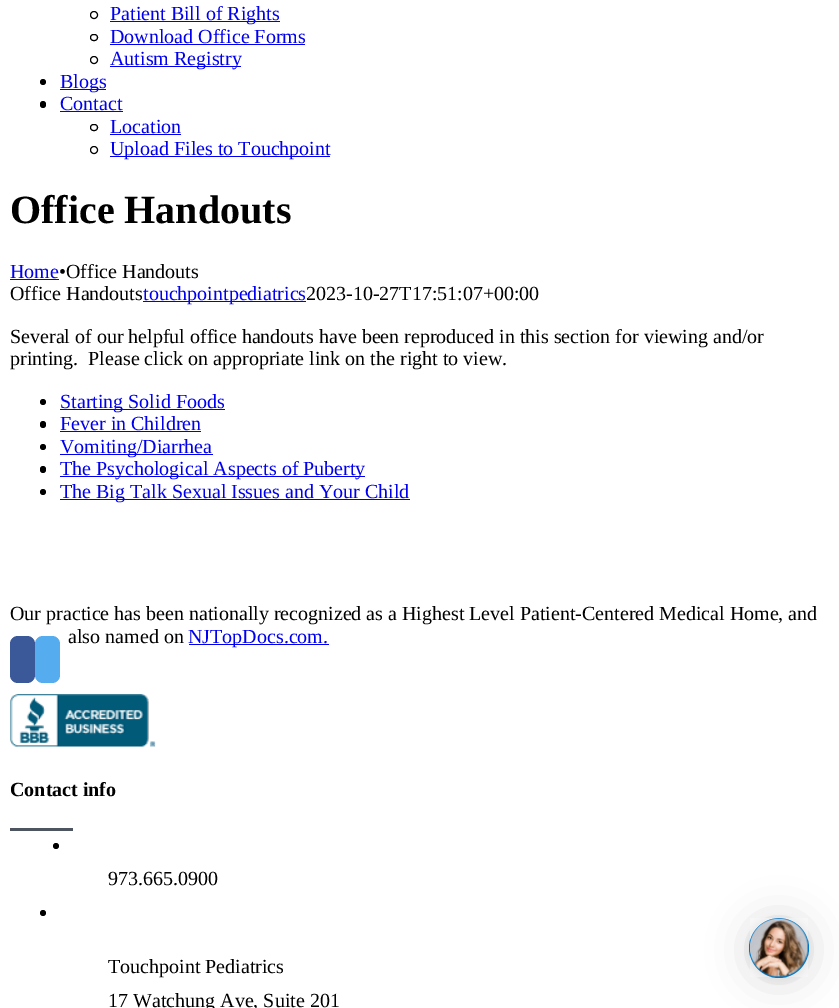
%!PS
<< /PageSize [839 1008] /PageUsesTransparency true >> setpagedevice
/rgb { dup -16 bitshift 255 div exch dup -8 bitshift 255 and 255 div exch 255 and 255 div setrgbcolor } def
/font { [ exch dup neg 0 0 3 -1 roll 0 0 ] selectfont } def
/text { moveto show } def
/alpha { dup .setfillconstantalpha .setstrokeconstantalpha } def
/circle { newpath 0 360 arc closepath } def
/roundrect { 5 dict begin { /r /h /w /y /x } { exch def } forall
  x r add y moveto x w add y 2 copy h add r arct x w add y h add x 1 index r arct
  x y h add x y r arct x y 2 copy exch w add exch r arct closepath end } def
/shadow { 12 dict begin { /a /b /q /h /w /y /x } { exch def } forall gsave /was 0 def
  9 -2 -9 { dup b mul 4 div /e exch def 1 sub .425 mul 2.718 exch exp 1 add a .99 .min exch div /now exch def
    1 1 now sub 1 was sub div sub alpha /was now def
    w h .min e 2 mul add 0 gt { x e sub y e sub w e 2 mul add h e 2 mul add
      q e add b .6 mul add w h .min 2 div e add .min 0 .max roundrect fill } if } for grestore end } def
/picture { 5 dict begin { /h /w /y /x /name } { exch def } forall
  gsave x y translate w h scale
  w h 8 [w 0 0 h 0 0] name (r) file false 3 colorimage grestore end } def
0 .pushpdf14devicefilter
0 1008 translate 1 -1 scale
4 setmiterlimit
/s1 { /LiberationSerif-Regular 20 font 16#0000EE rgb } def
/s2 { /LiberationSerif-Bold 40 font 16#000000 rgb } def
/s3 { /LiberationSerif-Regular 20 font 16#000000 rgb } def
/s4 { /LiberationSerif-Bold 20 font 16#000000 rgb } def
16#FFFFFF rgb
0 0 839 1008 rectfill
16#000000 rgb
94 15 3.5 circle stroke
16#0000EE rgb
110 21 170 1 rectfill
s1
(Patient Bill of Rights) 110 20 text
16#000000 rgb
90.5 34.5 7 6 3 roundrect stroke
s1
(Download Office Forms) 110 43 text
110 44 195 1 rectfill
16#000000 rgb
94 60 3.5 circle stroke
16#0000EE rgb
110 66 131 1 rectfill
(Autism Registry) 110 65 text
16#000000 rgb
43 82 3 circle fill
16#0000EE rgb
60 89 46 1 rectfill
(Blogs) 60 88 text
16#000000 rgb
40 101 6 7 3 roundrect fill
s1
(Contact) 60 110 text
60 111 63 1 rectfill
16#000000 rgb
90.5 124.5 7 6 3 roundrect stroke
s1
(Location) 110 133 text
110 134 71 1 rectfill
16#000000 rgb
94 150 3.5 circle stroke
16#0000EE rgb
110 156 220 1 rectfill
(Upload Files to Touchpoint) 110 155 text
s2
(Office Handouts) 10 223 text
s1
(Home) 10 278 text
10 279 49 1 rectfill
s3
(•Office Handouts) 59 278 text
(Office Handouts) 10 300 text
16#0000EE rgb
143 301 163 1 rectfill
(touchpointpediatrics) 143 300 text
s3
(2023-10-27T17:51:07+00:00) 306 300 text
(Several of our helpful office handouts have been reproduced in this section for viewing and/or) 10 343 text
(printing.  Please click on appropriate link on the right to view.) 10 365 text
43 402 3 circle fill
16#0000EE rgb
60 409 165 1 rectfill
(Starting Solid Foods) 60 408 text
16#000000 rgb
40 421 6 7 3 roundrect fill
s1
(Fever in Children) 60 430 text
60 431 141 1 rectfill
16#000000 rgb
43 447 3 circle fill
16#0000EE rgb
60 454 153 1 rectfill
(Vomiting/Diarrhea) 60 453 text
16#000000 rgb
40 466 6 7 3 roundrect fill
16#0000EE rgb
60 476 305 1 rectfill
(The Psychological Aspects of Puberty) 60 475 text
16#000000 rgb
43 492 3 circle fill
16#0000EE rgb
60 499 350 1 rectfill
(The Big Talk Sexual Issues and Your Child) 60 498 text
s3
(Our practice has been nationally recognized as a Highest Level Patient-Centered Medical Home, and) 10 620 text
(also named on) 68 643 text
16#0000EE rgb
189 644 140 1 rectfill
(NJTopDocs.com.) 188 643 text
16#3B5998 rgb
10 636 25 47 8 roundrect fill
16#55ACEE rgb
35 636 25 47 8 roundrect fill
(pic1.raw) 10 694 146 53 picture
s4
(Contact info) 10 796 text
16#4D5560 rgb
10 828 63 3 rectfill
16#000000 rgb
56 846 3 circle fill
s3
(973.665.0900) 108 885 text
43 913 3 circle fill
(Touchpoint Pediatrics) 108 973 text
(17 Watchung Ave, Suite 201) 108 1007 text
749 920 60 60 30 20 0.16 shadow
749 919 60 60 30 4 0.06 shadow
16#0075C1 rgb
779 948 30 circle fill
(pic2.raw) 750 918 58 59 picture
.poppdf14devicefilter showpage
